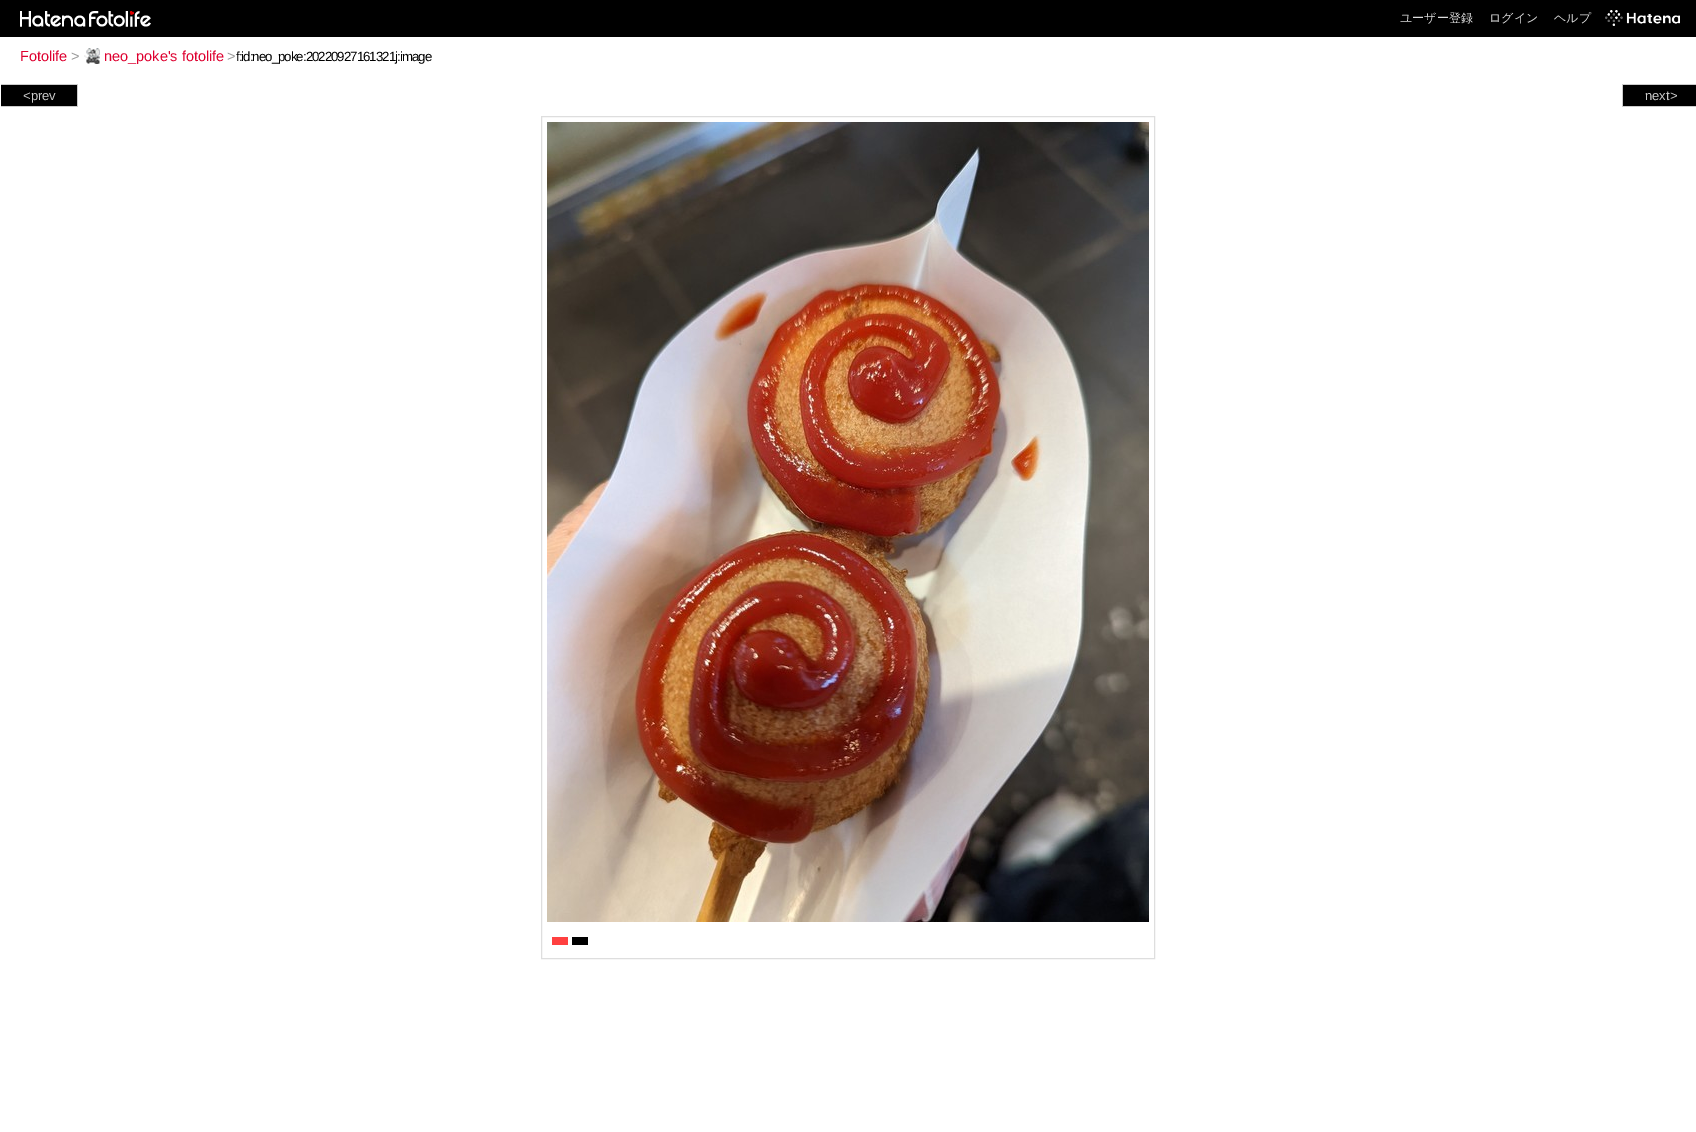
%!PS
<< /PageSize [1696 1132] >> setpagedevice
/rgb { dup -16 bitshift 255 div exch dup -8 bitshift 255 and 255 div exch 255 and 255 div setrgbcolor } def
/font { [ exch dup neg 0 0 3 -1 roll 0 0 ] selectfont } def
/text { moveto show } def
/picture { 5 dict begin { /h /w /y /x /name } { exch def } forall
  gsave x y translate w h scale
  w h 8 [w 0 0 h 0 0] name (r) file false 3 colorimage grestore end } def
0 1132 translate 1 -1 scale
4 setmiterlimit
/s1 { /WenQuanYiZenHei-Medium 12 font 16#DDDDDD rgb } def
/s2 { /LiberationSans-Regular 14.5 font 16#DE002F rgb } def
/s3 { /LiberationSans-Regular 14.5 font 16#999999 rgb } def
/s4 { /LiberationSans-Regular 13 font 16#CCCCCC rgb } def
16#FFFFFF rgb
0 0 1696 1132 rectfill
16#000000 rgb
0 0 1696 37 rectfill
(pic1.raw) 20 11 66 16 picture
(pic2.raw) 89 11 62 16 picture
s1
(ユーザー登録) 1400 22 text
(ログイン) 1489 22 text
(ヘルプ) 1554 22 text
(pic3.raw) 1605 10 75 16 picture
s2
(Fotolife) 20 61 text
s3
(>) 71 61 text
(pic4.raw) 84 48 16 16 picture
s2
(neo_poke's fotolife) 104 61 text
s3
(>) 227 61 text
/LiberationSans-Regular 13.3 font
16#000000 rgb
236 61 moveto -1 0 (f:id:neo_poke:20220927161321j:image) ashow
1 85 76 21 rectfill
16#CCCCCC rgb
1 84 77 1 rectfill
77 84 1 23 rectfill
1 106 77 1 rectfill
s4
(<prev) 23 100 text
16#000000 rgb
1623 85 73 21 rectfill
16#CCCCCC rgb
1622 84 74 1 rectfill
1622 106 74 1 rectfill
1622 84 1 23 rectfill
(next>) 1645 100 text
16#DEDEDE rgb
541.5 116.5 613 842 rectstroke
(pic5.raw) 547 122 602 800 picture
16#FF4040 rgb
552 937 16 8 rectfill
16#000000 rgb
572 937 16 8 rectfill
showpage
